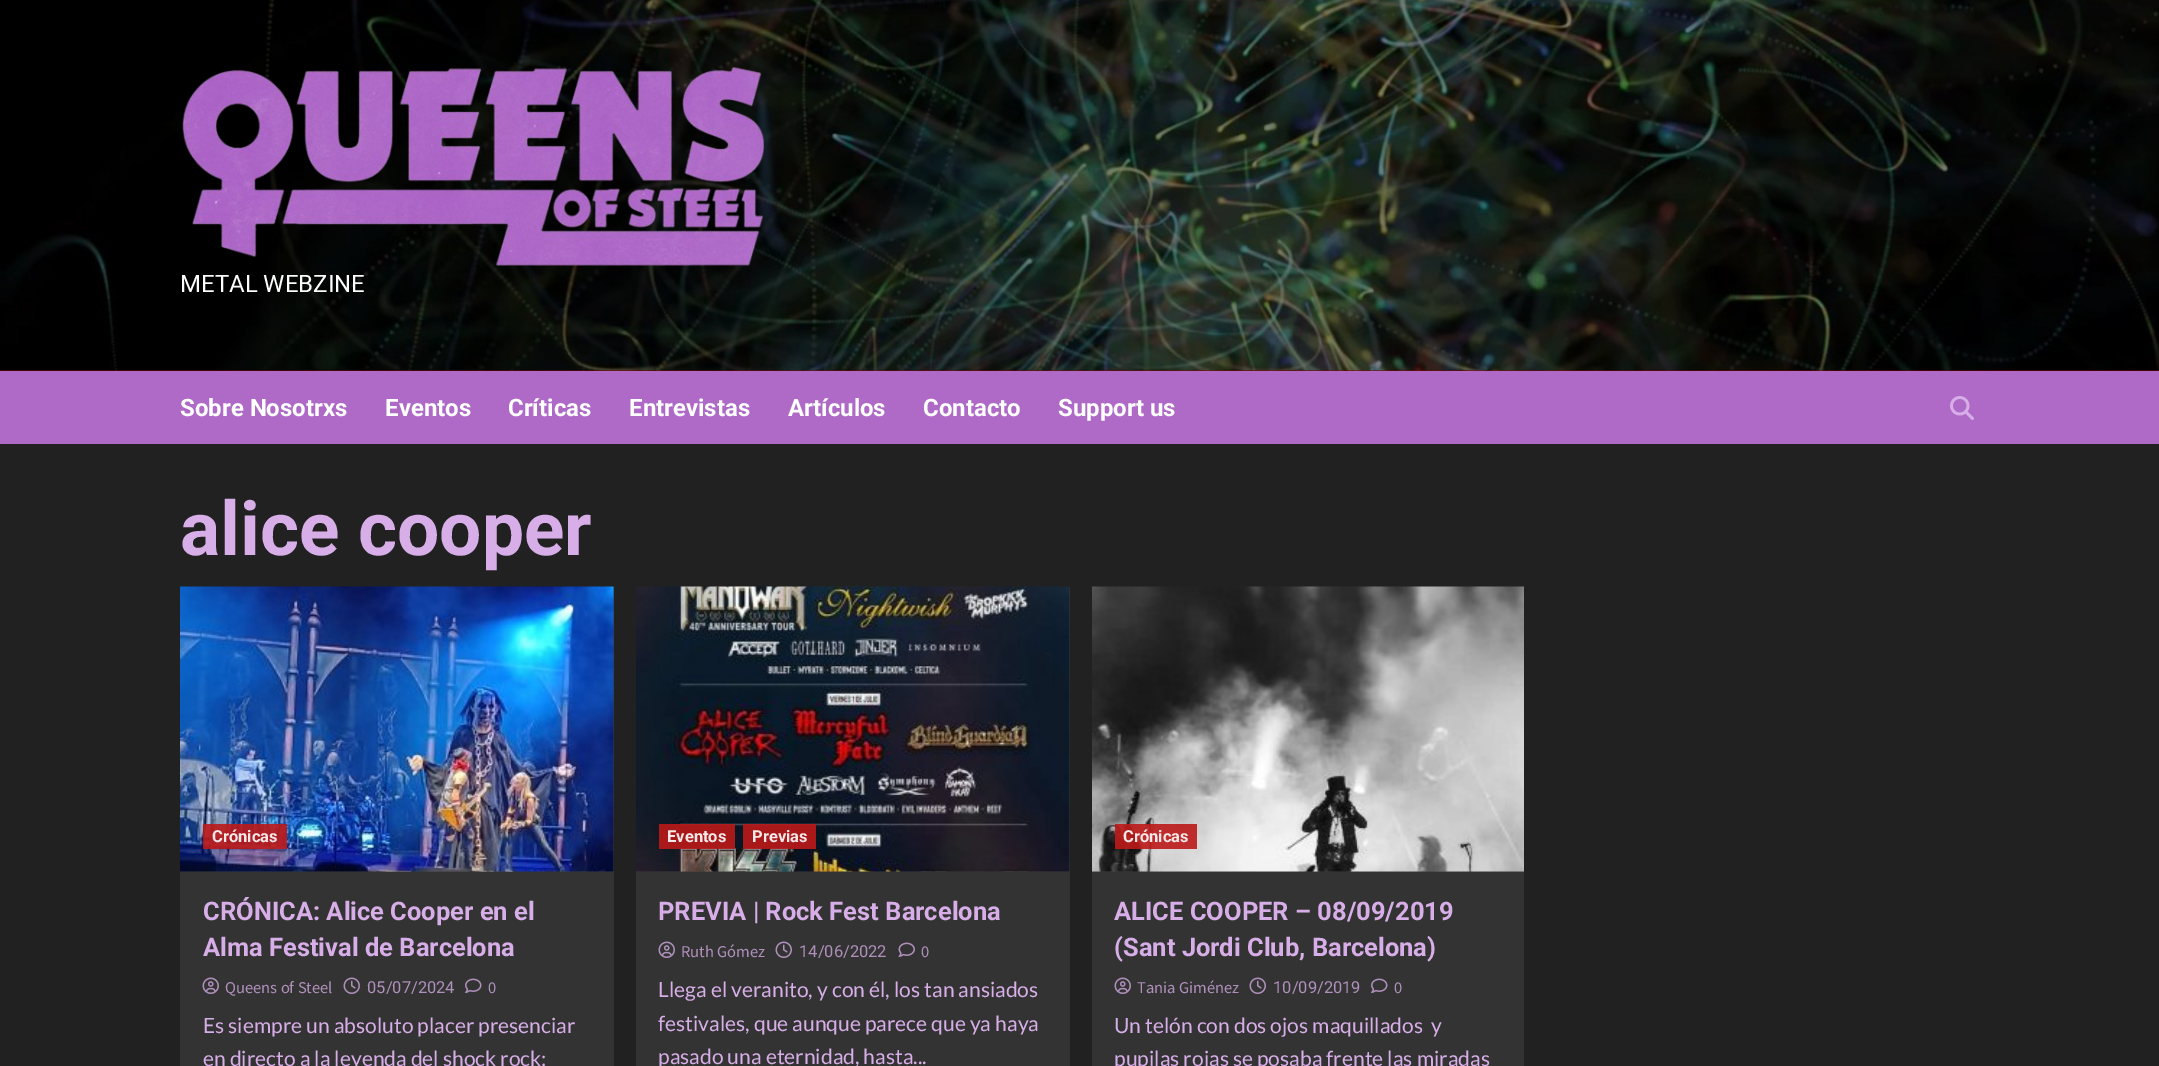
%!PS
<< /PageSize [2159 1066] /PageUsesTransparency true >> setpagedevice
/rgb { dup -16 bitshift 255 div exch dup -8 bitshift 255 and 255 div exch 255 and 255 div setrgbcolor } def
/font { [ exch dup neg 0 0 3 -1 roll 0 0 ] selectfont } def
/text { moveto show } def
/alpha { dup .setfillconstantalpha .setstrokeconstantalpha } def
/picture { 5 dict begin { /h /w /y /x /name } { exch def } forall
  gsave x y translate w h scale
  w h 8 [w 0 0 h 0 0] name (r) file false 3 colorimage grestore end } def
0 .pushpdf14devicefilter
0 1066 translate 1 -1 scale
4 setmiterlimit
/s1 { /Roboto-Regular 24 font 16#FFFFFF rgb } def
/s2 { /Roboto-Bold 24 font 16#FFFFFF rgb } def
/s3 { /Roboto-Bold 75 font 16#D8AEE8 rgb } def
/s4 { /Roboto-Bold 16.5 font 16#F7E9E9 rgb } def
/s5 { /Roboto-Bold 25.5 font 16#D8AEE8 rgb } def
/s6 { /SourceSansPro-Regular 16.5 font 16#AF8FBB rgb } def
/s7 { /Roboto-Regular 16.5 font 16#AF8FBB rgb } def
/s8 { /Lato-Regular 21 font 16#D8AEE8 rgb } def
16#212121 rgb
0 0 2159 1066 rectfill
16#800000 rgb
0 370 2159 1 rectfill
(pic1.raw) 0 0 2159 371 picture
(pic2.raw) 182 67 583 199 picture
s1
(METAL WEBZINE) 180 292 text
16#AF6AC8 rgb
0 371 2159 73 rectfill
s2
(Sobre Nosotrxs) 180 416 text
(Eventos) 385 416 text
(Críticas) 508 416 text
(Entrevistas) 629 416 text
(Artículos) 788 416 text
(Contacto) 923 416 text
(Support us) 1058 416 text
(pic3.raw) 1950 396 24 24 picture
s3
(alice cooper) 180 555 text
16#333333 rgb
180 872 434 194 rectfill
16#3D3D3D rgb
180 587 434 285 rectfill
(pic4.raw) 180 586 434 286 picture
0.9 alpha
16#BB1919 rgb
203 824 84 25 rectfill
1 alpha
s4
(Crónicas) 212 842 text
s5
(CRÓNICA: Alice Cooper en el) 203 920 text
(Alma Festival de Barcelona) 203 956 text
(pic5.raw) 202 977 17 17 picture
s6
(Queens of Steel) 225 993 text
(pic6.raw) 343 977 17 17 picture
s7
(05/07/2024) 367 993 text
(pic7.raw) 465 978 17 15 picture
s6
(0) 488 993 text
s8
(Es siempre un absoluto placer presenciar) 203 1033 text
(en directo a la leyenda del shock rock:) 203 1066 text
16#333333 rgb
636 872 434 194 rectfill
16#3D3D3D rgb
636 587 434 285 rectfill
(pic8.raw) 636 586 434 286 picture
0.9 alpha
16#BB1919 rgb
659 824 76 25 rectfill
1 alpha
s4
(Eventos) 667 842 text
0.9 alpha
16#BB1919 rgb
743 824 73 25 rectfill
1 alpha
s4
(Previas) 752 842 text
s5
(PREVIA | Rock Fest Barcelona) 658 920 text
(pic5.raw) 658 941 17 17 picture
s6
(Ruth Gómez) 681 957 text
(pic6.raw) 775 941 17 17 picture
s7
(14/06/2022) 799 957 text
(pic9.raw) 898 942 17 15 picture
s6
(0) 921 957 text
s8
(Llega el veranito, y con él, los tan ansiados) 658 997 text
(festivales, que aunque parece que ya haya) 658 1031 text
(pasado una eternidad, hasta...) 658 1064 text
16#333333 rgb
1092 872 432 194 rectfill
16#3D3D3D rgb
1092 871 432 1 rectfill
(pic10.raw) 1092 586 432 286 picture
0.9 alpha
16#BB1919 rgb
1115 824 82 25 rectfill
1 alpha
s4
(Crónicas) 1123 842 text
s5
(ALICE COOPER – 08/09/2019) 1114 920 text
(\(Sant Jordi Club, Barcelona\)) 1114 956 text
(pic5.raw) 1114 977 17 17 picture
s6
(Tania Giménez) 1137 993 text
(pic6.raw) 1249 977 17 17 picture
s7
(10/09/2019) 1273 993 text
(pic7.raw) 1371 978 17 15 picture
s6
(0) 1394 993 text
s8
(Un telón con dos ojos maquillados  y) 1114 1033 text
(pupilas rojas se posaba frente las miradas) 1114 1066 text
.poppdf14devicefilter showpage
